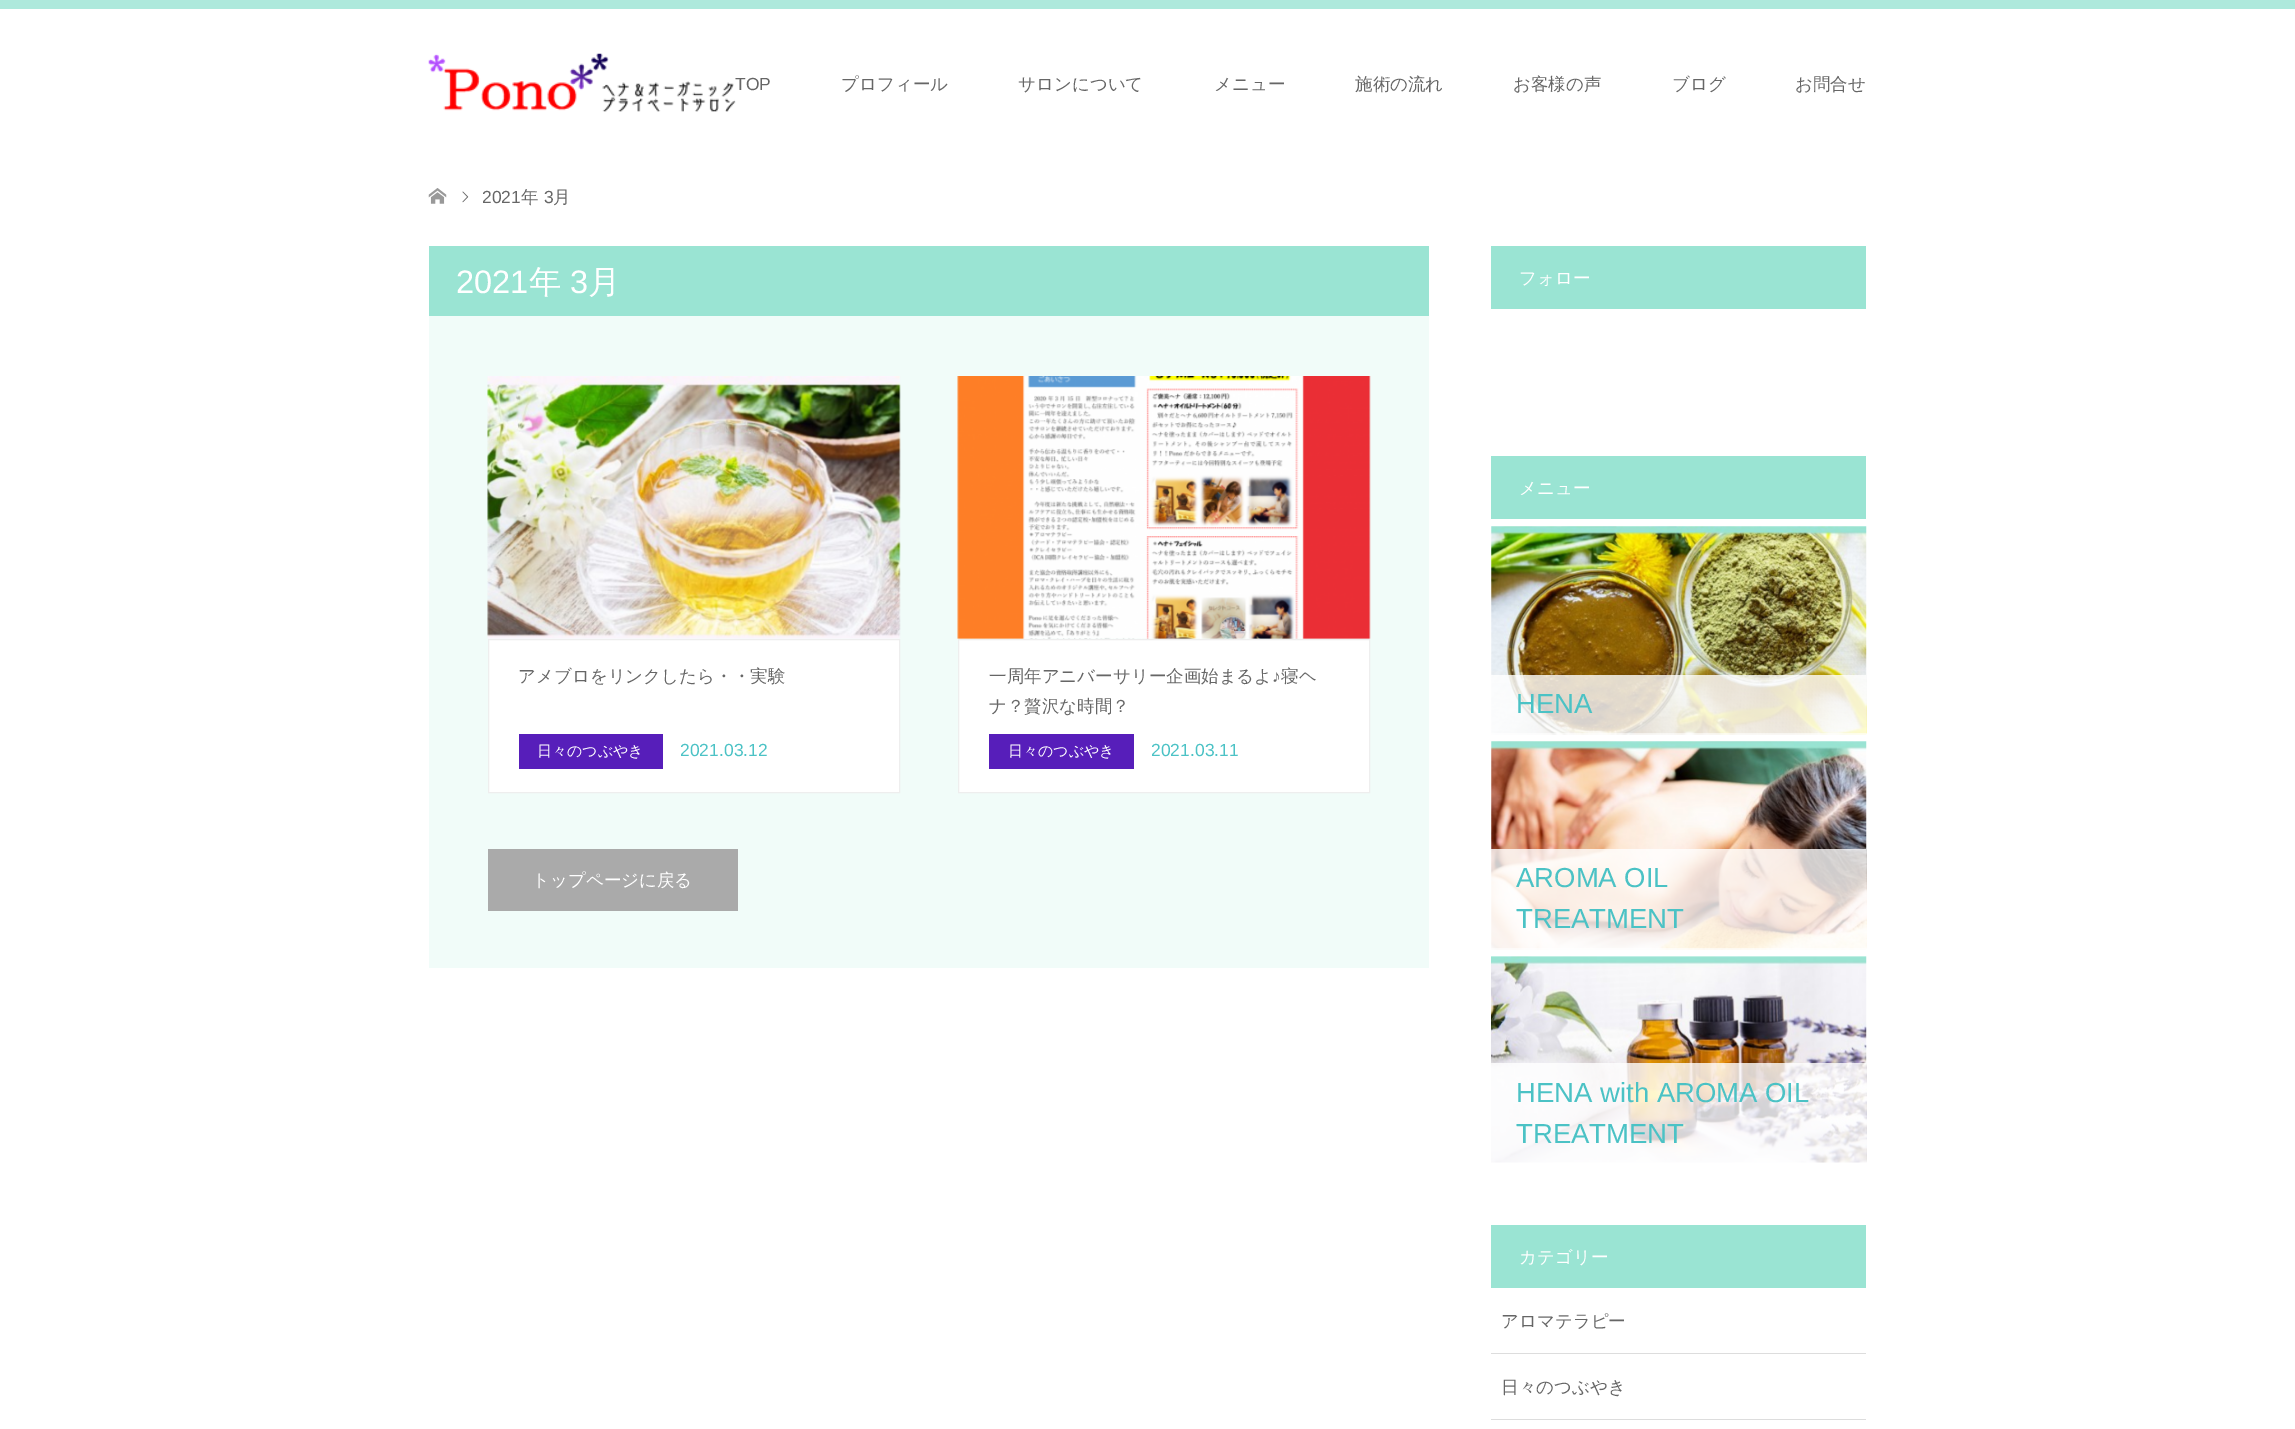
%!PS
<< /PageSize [2295 1429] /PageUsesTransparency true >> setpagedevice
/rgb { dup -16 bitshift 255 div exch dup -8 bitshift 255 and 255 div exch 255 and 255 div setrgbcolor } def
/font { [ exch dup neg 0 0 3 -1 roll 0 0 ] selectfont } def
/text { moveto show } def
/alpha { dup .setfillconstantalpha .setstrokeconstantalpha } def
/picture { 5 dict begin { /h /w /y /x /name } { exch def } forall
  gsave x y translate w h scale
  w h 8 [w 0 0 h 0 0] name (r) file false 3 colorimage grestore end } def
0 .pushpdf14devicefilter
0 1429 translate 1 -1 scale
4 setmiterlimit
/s1 { /LiberationSans-Regular 17.5 font 16#666666 rgb } def
/s2 { /WenQuanYiZenHei-Medium 17.5 font 16#666666 rgb } def
/s3 { /LiberationSans-Regular 32.5 font 16#FFFFFF rgb } def
/s4 { /WenQuanYiZenHei-Medium 32.5 font 16#FFFFFF rgb } def
/s5 { /WenQuanYiZenHei-Medium 15 font 16#FFFFFF rgb } def
/s6 { /LiberationSans-Regular 17.5 font 16#4BC2C5 rgb } def
/s7 { /WenQuanYiZenHei-Medium 17.5 font 16#FFFFFF rgb } def
/s8 { /LiberationSans-Regular 27.5 font 16#4BC2C5 rgb } def
16#FFFFFF rgb
0 0 2295 1429 rectfill
16#AEE9DC rgb
0 0 2295 9 rectfill
(pic1.raw) 428 53 308 59 picture
s1
(TOP) 735 90 text
s2
(プロフィール) 841 90 text
(サロンについて) 1018 90 text
(メニュー) 1214 90 text
(施術の流れ) 1355 90 text
(お客様の声) 1513 90 text
(ブログ) 1672 90 text
(お問合せ) 1795 90 text
(pic2.raw) 428 188 19 16 picture
(pic3.raw) 462 191 7 12 picture
s1
(2021) 482 203 text
s2
(年) 521 203 text
s1
(3) 544 203 text
s2
(月) 553 203 text
16#9AE4D3 rgb
429 246 1000 70 rectfill
s3
(2021) 456 293 text
s4
(年) 529 293 text
s3
(3) 570 293 text
s4
(月) 588 293 text
16#F1FCF9 rgb
429 316 1000 652 rectfill
(pic4.raw) 487 376 414 263 picture
16#FFFFFF rgb
488.5 639.5 moveto 899.5 639.5 lineto 899.5 792.5 lineto 488.5 792.5 lineto closepath gsave fill grestore
16#EEEEEE rgb
stroke
s2
(アメブロをリンクしたら・・実験) 518 682 text
16#571EBA rgb
519 734 144 35 rectfill
s5
(日々のつぶやき) 537 756 text
s6
(2021.03.12) 680 756 text
(pic5.raw) 957 376 414 263 picture
16#FFFFFF rgb
958.5 639.5 moveto 1369.5 639.5 lineto 1369.5 792.5 lineto 958.5 792.5 lineto closepath gsave fill grestore
16#EEEEEE rgb
stroke
s2
(一周年アニバーサリー企画始まるよ) 989 682 text
s1
(♪) 1272 682 text
s2
(寝ヘ) 1281 682 text
(ナ？贅沢な時間？) 989 712 text
16#571EBA rgb
989 734 145 35 rectfill
s5
(日々のつぶやき) 1008 756 text
s6
(2021.03.11) 1151 756 text
16#AAAAAA rgb
488 849 250 62 rectfill
s7
(トップページに戻る) 532 886 text
16#9AE4D3 rgb
1491 246 375 63 rectfill
s7
(フォロー) 1519 284 text
16#9AE4D3 rgb
1491 456 375 63 rectfill
s7
(メニュー) 1519 494 text
(pic6.raw) 1491 526 376 209 picture
0.8 alpha
1491 675 375 59 rectfill
1 alpha
s8
(HENA) 1516 713 text
(pic7.raw) 1491 741 376 209 picture
0.8 alpha
16#FFFFFF rgb
1491 849 375 100 rectfill
1 alpha
s8
(AROMA OIL) 1516 887 text
(TREATMENT) 1516 928 text
(pic8.raw) 1491 956 376 207 picture
0.8 alpha
16#FFFFFF rgb
1491 1063 375 100 rectfill
1 alpha
s8
(HENA with AROMA OIL) 1516 1102 text
(TREATMENT) 1516 1143 text
16#9AE4D3 rgb
1491 1225 375 63 rectfill
s7
(カテゴリー) 1519 1263 text
16#DDDDDD rgb
1491 1353 375 1 rectfill
s2
(アロマテラピー) 1501 1327 text
16#DDDDDD rgb
1491 1419 375 1 rectfill
s2
(日々のつぶやき) 1501 1393 text
.poppdf14devicefilter showpage
